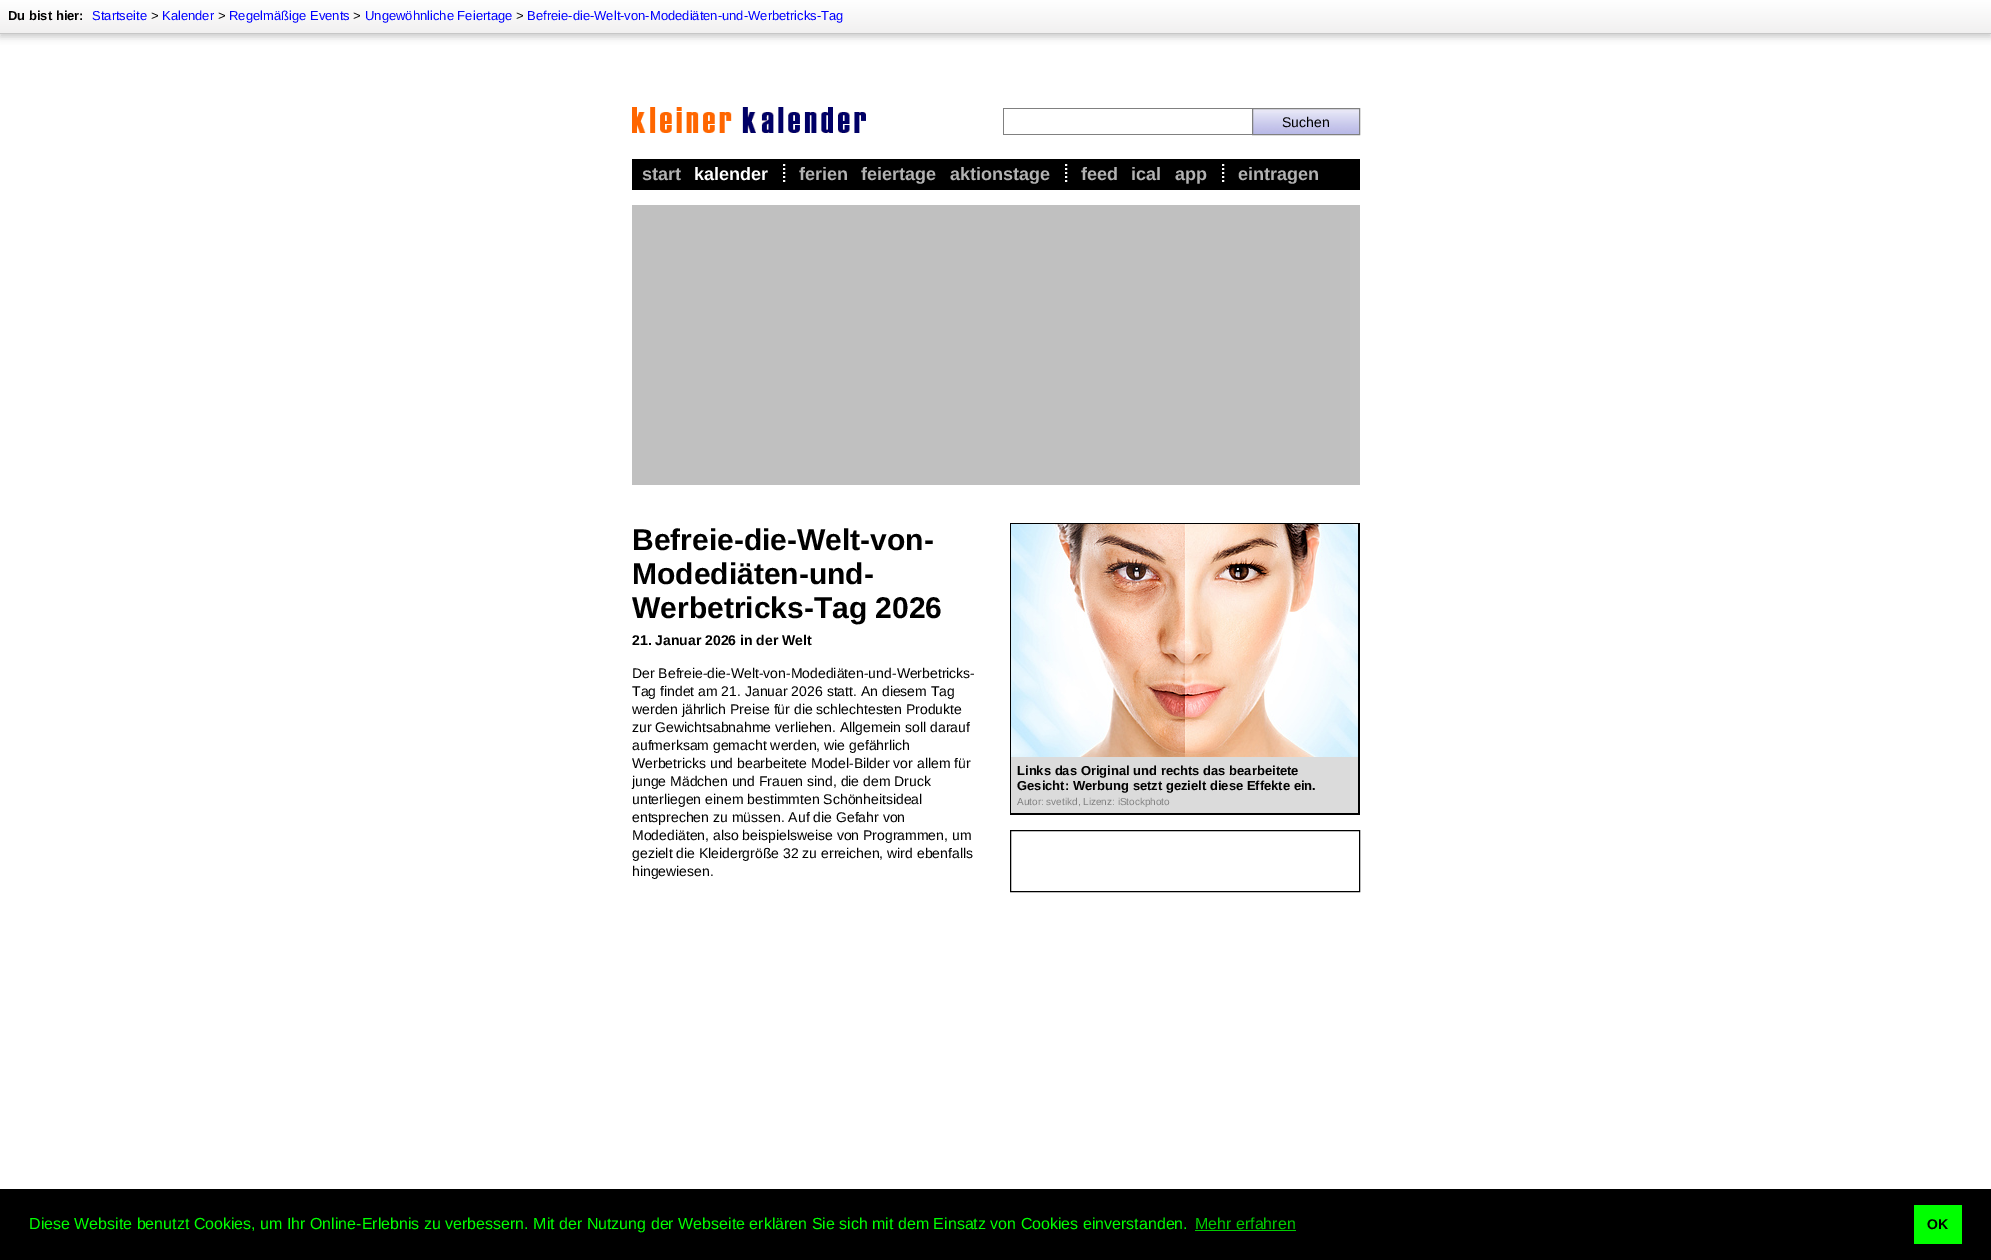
%!PS
<< /PageSize [1991 1260] /PageUsesTransparency true >> setpagedevice
/rgb { dup -16 bitshift 255 div exch dup -8 bitshift 255 and 255 div exch 255 and 255 div setrgbcolor } def
/font { [ exch dup neg 0 0 3 -1 roll 0 0 ] selectfont } def
/text { moveto show } def
/alpha { dup .setfillconstantalpha .setstrokeconstantalpha } def
/roundrect { 5 dict begin { /r /h /w /y /x } { exch def } forall
  x r add y moveto x w add y 2 copy h add r arct x w add y h add x 1 index r arct
  x y h add x y r arct x y 2 copy exch w add exch r arct closepath end } def
/shadow { 12 dict begin { /a /b /q /h /w /y /x } { exch def } forall gsave /was 0 def
  9 -2 -9 { dup b mul 4 div /e exch def 1 sub .425 mul 2.718 exch exp 1 add a .99 .min exch div /now exch def
    1 1 now sub 1 was sub div sub alpha /was now def
    w h .min e 2 mul add 0 gt { x e sub y e sub w e 2 mul add h e 2 mul add
      q e add b .6 mul add w h .min 2 div e add .min 0 .max roundrect fill } if } for grestore end } def
/picture { 5 dict begin { /h /w /y /x /name } { exch def } forall
  gsave x y translate w h scale
  w h 8 [w 0 0 h 0 0] name (r) file false 3 colorimage grestore end } def
0 .pushpdf14devicefilter
0 1260 translate 1 -1 scale
4 setmiterlimit
/s1 { /LiberationSans-Bold 13 font 16#000000 rgb } def
/s2 { /LiberationSans-Regular 13 font 16#0000FF rgb } def
/s3 { /LiberationSans-Regular 13 font 16#000000 rgb } def
/s4 { /LiberationSans-Bold 18 font 16#B2B2B2 rgb } def
/s5 { /LiberationSans-Bold 18 font 16#FFFFFF rgb } def
/s6 { /LiberationSans-Regular 14 font 16#000000 rgb } def
/s7 { /LiberationSans-Bold 30 font 16#000000 rgb } def
/s8 { /LiberationSans-Bold 14 font 16#000000 rgb } def
/s9 { /LiberationSans-Regular 10 font 16#808080 rgb } def
/s10 { /LiberationSans-Regular 16 font 16#00FF00 rgb } def
/s11 { /LiberationSans-Regular 16 font 16#00CC00 rgb } def
16#FFFFFF rgb
0 0 1991 1260 rectfill
16#000000 rgb
0 3 1991 34 0 3.5 0.2 shadow
gsave 0 0 moveto 1991 0 lineto 1991 33 lineto 0 33 lineto closepath clip newpath
<< /ShadingType 2 /ColorSpace /DeviceRGB /Coords [996 0 996 33] /Extend [true true] /Function << /FunctionType 2 /Domain [0 1] /C0 [1 1 1] /C1 [0.945 0.941 0.941] /N 1 >> >> shfill grestore
16#C7C7C7 rgb
0 33 1991 1 rectfill
s1
(Du bist hier:) 8 20 text
s2
(Startseite) 92 20 text
s3
(>) 151 20 text
s2
(Kalender) 162 20 text
s3
(>) 218 20 text
s2
(Regelmäßige Events) 229 20 text
s3
(>) 353 20 text
s2
(Ungewöhnliche Feiertage) 365 20 text
s3
(>) 516 20 text
s2
(Befreie-die-Welt-von-Modediäten-und-Werbetricks-Tag) 527 20 text
16#000000 rgb
632 159 728 31 rectfill
s4
(start) 642 180 text
s5
(kalender) 694 180 text
2 setlinewidth
[2 2] 0 setdash
784 164 moveto 784 184 lineto stroke
s4
(ferien) 799 180 text
(feiertage) 861 180 text
(aktionstage) 950 180 text
16#FFFFFF rgb
1066 164 moveto 1066 184 lineto stroke
s4
(feed) 1081 180 text
(ical) 1131 180 text
(app) 1175 180 text
16#FFFFFF rgb
1223 164 moveto 1223 184 lineto stroke
s4
(eintragen) 1238 180 text
(pic1.raw) 632 107 234 26 picture
16#808080 rgb
1003 108 250 1 rectfill
1003 134 250 1 rectfill
1003 108 1 27 rectfill
(pic2.raw) 1253 109 106 25 picture
1 setlinewidth
[] 0 setdash
1252.5 108.5 107 26 rectstroke
s6
(Suchen) 1282 127 text
16#C0C0C0 rgb
632 205 728 280 rectfill
s7
(Befreie-die-Welt-von-) 632 550 text
(Modediäten-und-) 632 584 text
(Werbetricks-Tag 2026) 632 618 text
s8
(21. Januar 2026 in der Welt) 632 645 text
s6
(Der Befreie-die-Welt-von-Modediäten-und-Werbetricks-) 632 678 text
(Tag findet am 21. Januar 2026 statt. An diesem Tag) 632 696 text
(werden jährlich Preise für die schlechtesten Produkte) 632 714 text
(zur Gewichtsabnahme verliehen. Allgemein soll darauf) 632 732 text
(aufmerksam gemacht werden, wie gefährlich) 632 750 text
(Werbetricks und bearbeitete Model-Bilder vor allem für) 632 768 text
(junge Mädchen und Frauen sind, die dem Druck) 632 786 text
(unterliegen einem bestimmten Schönheitsideal) 632 804 text
(entsprechen zu müssen. Auf die Gefahr von) 632 822 text
(Modediäten, also beispielsweise von Programmen, um) 632 840 text
(gezielt die Kleidergröße 32 zu erreichen, wird ebenfalls) 632 858 text
(hingewiesen.) 632 876 text
1010 523 350 1 rectfill
1358 523 2 292 rectfill
1010 813 350 2 rectfill
1010 523 1 292 rectfill
(pic3.raw) 1011 524 347 233 picture
16#DBDBDB rgb
1011 757 347 56 rectfill
s1
(Links das Original und rechts das bearbeitete) 1017 775 text
(Gesicht: Werbung setzt gezielt diese Effekte ein.) 1017 790 text
s9
(Autor: svetikd, Lizenz: iStockphoto) 1017 805 text
16#000000 rgb
1010.5 830.5 349 61 rectstroke
0 1189 1991 71 rectfill
s10
(Diese Website benutzt Cookies, um Ihr Online-Erlebnis zu verbessern. Mit der Nutzung der Webseite erklären Sie sich mit dem Einsatz von Cookies einverstanden.) 29 1229 text
s11
(Mehr erfahren) 1195 1229 text
1195 1230 101 1 rectfill
16#00FF00 rgb
1914 1205 48 39 rectfill
s8
(OK) 1927 1229 text
.poppdf14devicefilter showpage
